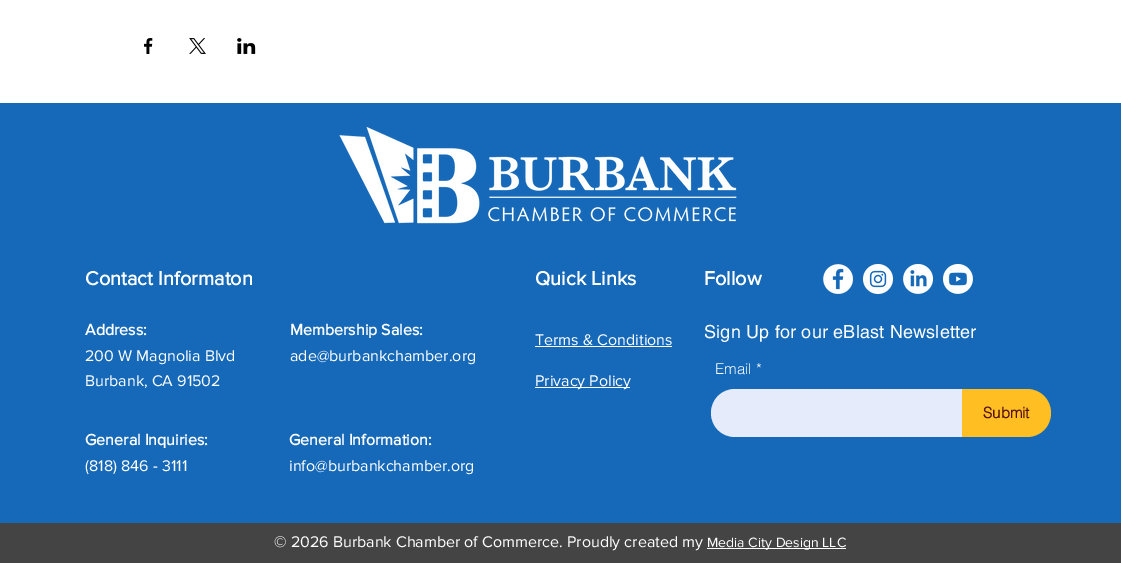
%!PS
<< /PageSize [1121 563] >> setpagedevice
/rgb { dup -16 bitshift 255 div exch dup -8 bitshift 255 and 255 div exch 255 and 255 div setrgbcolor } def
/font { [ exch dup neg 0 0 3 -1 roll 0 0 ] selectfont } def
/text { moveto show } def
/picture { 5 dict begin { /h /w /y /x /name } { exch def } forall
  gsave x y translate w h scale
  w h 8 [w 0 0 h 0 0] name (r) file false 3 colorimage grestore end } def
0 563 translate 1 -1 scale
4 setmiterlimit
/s1 { /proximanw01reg-Bold 20 font 16#FFFFFF rgb } def
/s2 { /proximanw01reg-Bold 16 font 16#FFFFFF rgb } def
/s3 { /proximanw01reg-Regular 16 font 16#FFFFFF rgb } def
/s4 { /helvetica-Light 15 font 16#FFFFFF rgb } def
/s5 { /helvetica-Bold 15 font 16#551314 rgb } def
/s6 { /proximanw01reg-Regular 14 font 16#FFFFFF rgb } def
16#FFFFFF rgb
0 0 1121 563 rectfill
(pic1.raw) 144 38 9 16 picture
(pic2.raw) 189 38 17 16 picture
(pic3.raw) 237 38 19 16 picture
16#1569B8 rgb
0 103 1121 420 rectfill
(pic4.raw) 339 126 398 98 picture
s1
(Contact Informaton) 85 285 text
s2
(Address:) 85 335 text
s3
(200 W Magnolia Blvd) 85 361 text
(Burbank, CA 91502) 85 386 text
s2
(Membership Sales:) 290 335 text
s3
(ade@burbankchamber.org) 290 361 text
s2
(General Inquiries:) 85 445 text
s3
(\(818\) 846 - 3111) 85 471 text
s2
(General Information:) 289 445 text
s3
(info@burbankchamber.org) 289 471 text
s1
(Quick Links) 535 285 text
s3
(Terms & Conditions) 535 345 text
535 346 137 1 rectfill
535 387 95 1 rectfill
(Privacy Policy) 535 386 text
s1
(Follow) 704 285 text
(pic5.raw) 823 264 30 30 picture
(pic6.raw) 863 264 30 30 picture
(pic7.raw) 903 264 30 30 picture
(pic8.raw) 943 264 30 30 picture
/helvetica-Regular 18 font
704 338 moveto 0.2 0 (Sign Up for our eBlast Newsletter) ashow
s4
(Email *) 715 374 text
16#E5EBFA rgb
735 389 moveto 962 389 lineto 962 437 lineto 735 437 lineto 721.5 437 711 426.5 711 413 curveto 711 399.5 721.5 389 735 389 curveto closepath fill
16#FFBF23 rgb
962 389 moveto 1027 389 lineto 1040.5 389 1051 399.5 1051 413 curveto 1051 426.5 1040.5 437 1027 437 curveto 962 437 lineto closepath fill
s5
(Submit) 983 418 text
16#444444 rgb
0 523 1121 40 rectfill
s3
(© 2026 Burbank Chamber of Commerce. Proudly created my) 274 547 text
707 548 139 1 rectfill
s6
(Media City Design LLC) 707 547 text
showpage
